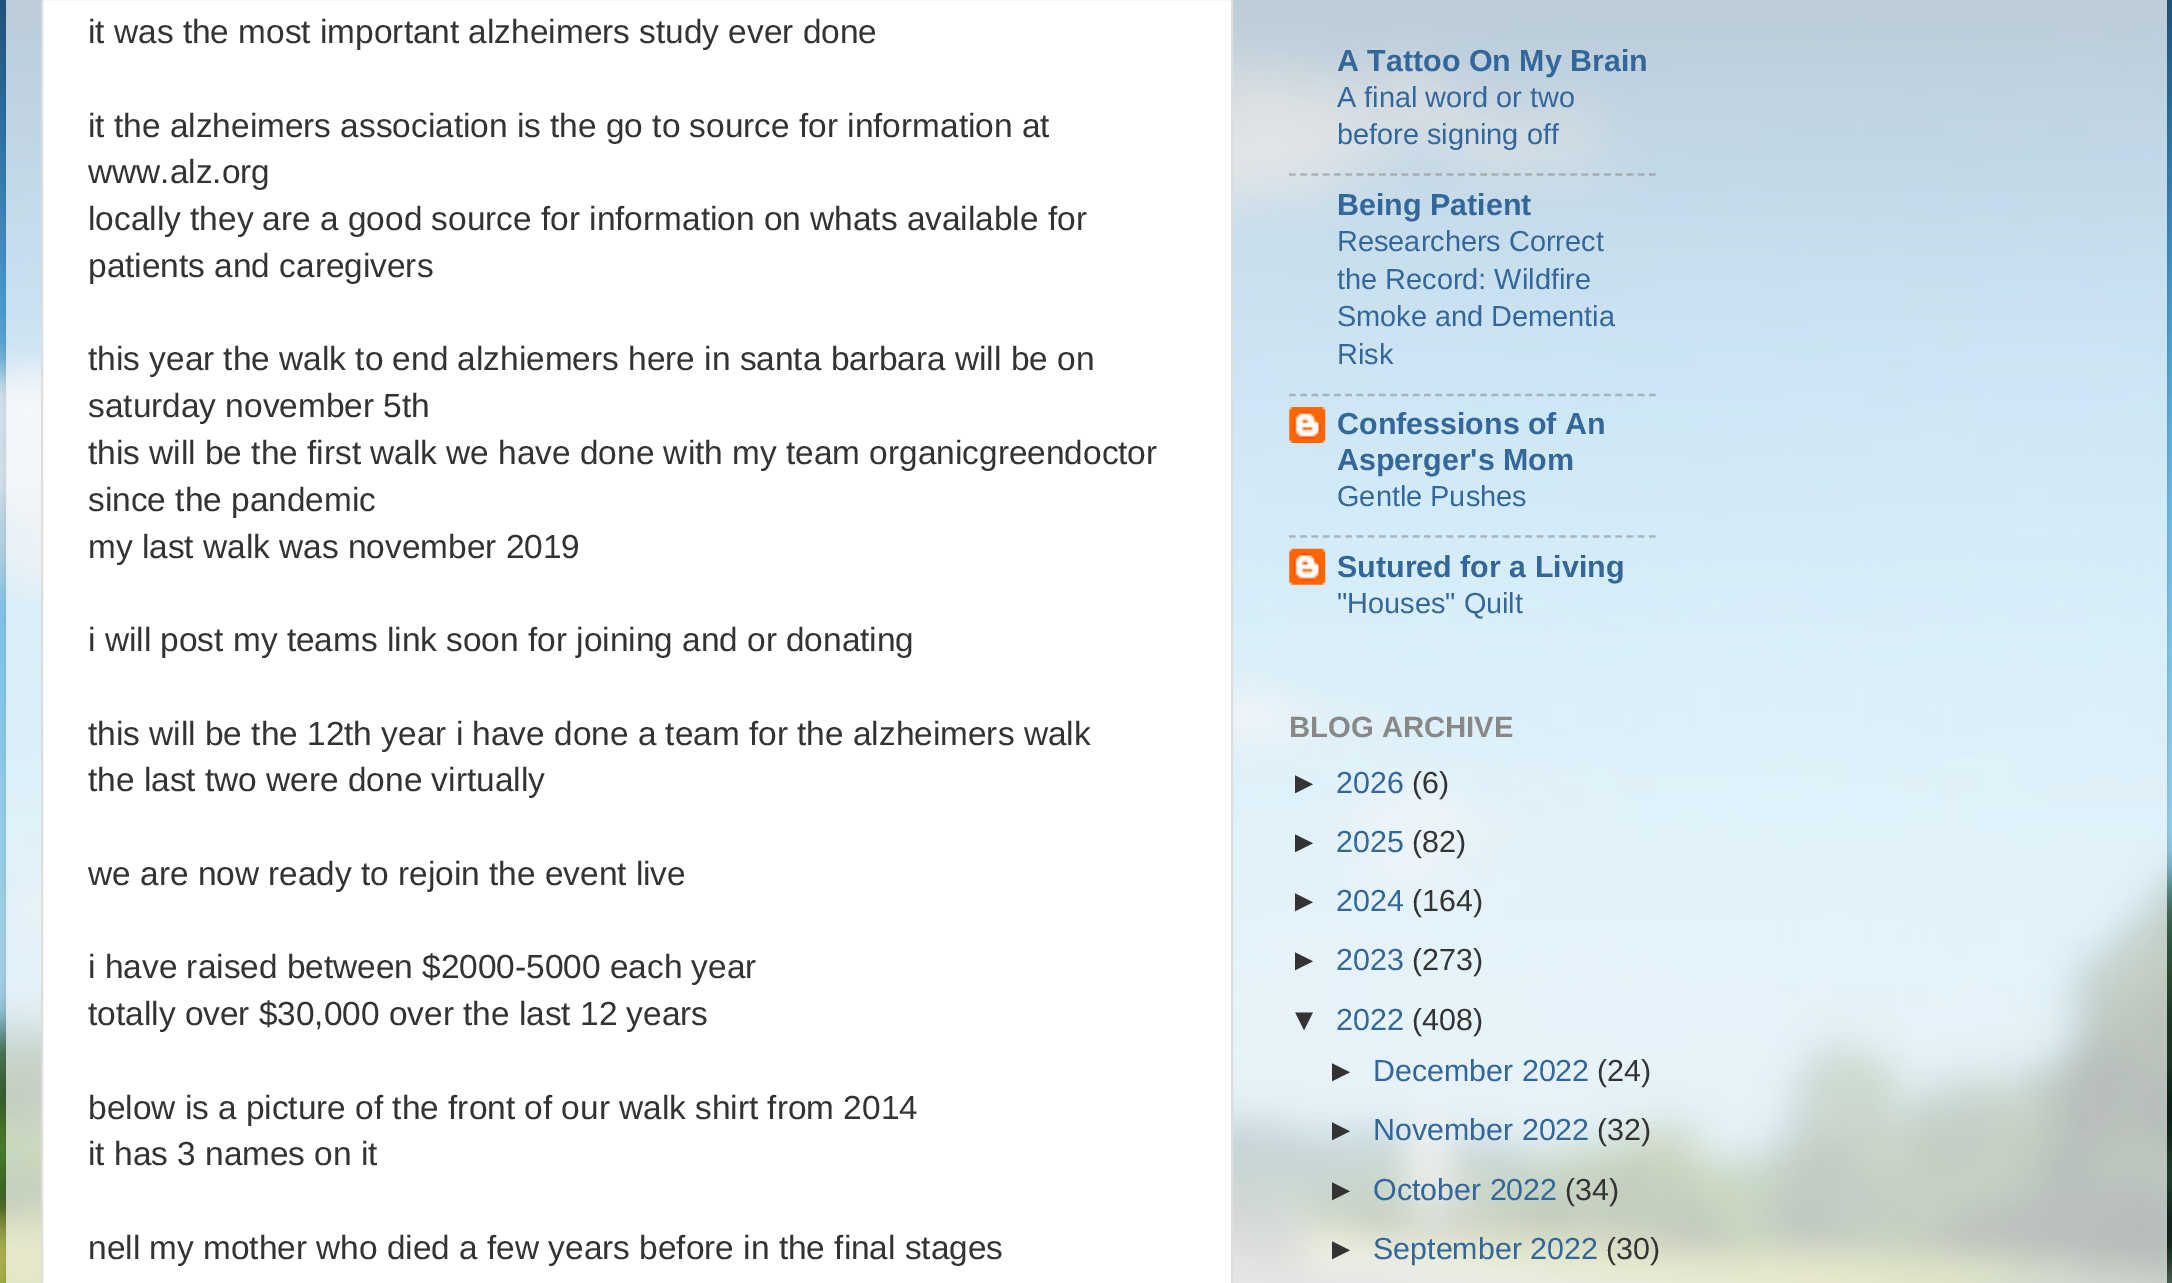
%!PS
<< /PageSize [2172 1283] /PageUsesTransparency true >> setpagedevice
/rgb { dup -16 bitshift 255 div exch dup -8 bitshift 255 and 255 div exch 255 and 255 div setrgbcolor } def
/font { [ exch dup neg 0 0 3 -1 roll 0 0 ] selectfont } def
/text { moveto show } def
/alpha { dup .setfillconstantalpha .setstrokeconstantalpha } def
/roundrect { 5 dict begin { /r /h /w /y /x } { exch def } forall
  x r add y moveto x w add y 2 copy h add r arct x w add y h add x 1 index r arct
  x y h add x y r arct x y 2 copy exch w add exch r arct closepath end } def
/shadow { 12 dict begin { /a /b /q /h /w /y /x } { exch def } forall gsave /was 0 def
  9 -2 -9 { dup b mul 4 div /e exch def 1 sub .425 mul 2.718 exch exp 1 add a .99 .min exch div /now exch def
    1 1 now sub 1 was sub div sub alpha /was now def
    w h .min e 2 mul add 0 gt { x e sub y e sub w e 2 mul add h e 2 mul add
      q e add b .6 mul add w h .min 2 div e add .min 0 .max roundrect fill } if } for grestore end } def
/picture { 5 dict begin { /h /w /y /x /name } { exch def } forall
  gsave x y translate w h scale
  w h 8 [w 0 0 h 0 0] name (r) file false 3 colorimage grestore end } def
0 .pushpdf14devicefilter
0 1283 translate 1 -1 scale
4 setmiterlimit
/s1 { /LiberationSans-Regular 33.4 font 16#333333 rgb } def
/s2 { /LiberationSans-Bold 30.4 font 16#336699 rgb } def
/s3 { /LiberationSans-Regular 28.9 font 16#336699 rgb } def
/s4 { /LiberationSans-Bold 29.25 font 16#888888 rgb } def
/s5 { /LiberationSans-Regular 30.4 font 16#333333 rgb } def
/s6 { /LiberationSans-Regular 30.4 font 16#336699 rgb } def
16#FFFFFF rgb
0 0 2172 1283 rectfill
(pic1.raw) 0 0 2172 1283 picture
gsave
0 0 moveto 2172 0 lineto 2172 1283 lineto 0 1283 lineto closepath 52 -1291 moveto 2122 -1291 lineto 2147 -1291 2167 -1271 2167 -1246 curveto 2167 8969 lineto 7 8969 lineto 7 -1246 lineto 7 -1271 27 -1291 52 -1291 curveto closepath eoclip newpath
16#000000 rgb
7 -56 2160 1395 45 3.5 0.15 shadow
grestore
0.7 alpha
6 0 2161 1283 rectfill
1 alpha
42 -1 moveto 1232 -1 lineto 1232 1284 lineto 42 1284 lineto closepath gsave fill grestore
16#DDDDDD rgb
2 setlinewidth
stroke
s1
(it was the most important alzheimers study ever done) 88 43 text
(it the alzheimers association is the go to source for information at) 88 137 text
(www.alz.org) 88 183 text
(locally they are a good source for information on whats available for) 88 230 text
(patients and caregivers) 88 277 text
(this year the walk to end alzhiemers here in santa barbara will be on) 88 370 text
(saturday november 5th) 88 417 text
(this will be the first walk we have done with my team organicgreendoctor) 88 464 text
(since the pandemic) 88 511 text
(my last walk was november 2019) 88 558 text
(i will post my teams link soon for joining and or donating) 88 651 text
(this will be the 12th year i have done a team for the alzheimers walk) 88 745 text
(the last two were done virtually) 88 791 text
(we are now ready to rejoin the event live) 88 885 text
(i have raised between $2000-5000 each year) 88 978 text
(totally over $30,000 over the last 12 years) 88 1025 text
(below is a picture of the front of our walk shirt from 2014) 88 1119 text
(it has 3 names on it) 88 1165 text
(nell my mother who died a few years before in the final stages) 88 1259 text
s2
(A Tattoo On My Brain) 1337 71 text
s3
(A final word or two) 1337 107 text
(before signing off) 1337 144 text
0.5 alpha
16#808080 rgb
2.2 setlinewidth
[6.75 4.5] 0 setdash
1289 174.5 moveto 1656 174.5 lineto stroke
1 alpha
s2
(Being Patient) 1337 215 text
s3
(Researchers Correct) 1337 251 text
(the Record: Wildfire) 1337 289 text
(Smoke and Dementia) 1337 326 text
(Risk) 1337 364 text
16#A7B3BA rgb
1289 395 moveto 1656 395 lineto stroke
(pic2.raw) 1289 407 37 36 picture
s2
(Confessions of An) 1337 434 text
(Asperger's Mom) 1337 470 text
s3
(Gentle Pushes) 1337 506 text
16#AAB6BC rgb
1289 536.5 moveto 1656 536.5 lineto stroke
(pic3.raw) 1289 548 37 37 picture
s2
(Sutured for a Living) 1337 577 text
s3
("Houses" Quilt) 1337 613 text
s4
(BLOG ARCHIVE) 1289 737 text
s5
(►) 1289 793 text
s6
(2026) 1336 793 text
s5
(\(6\)) 1412 793 text
(►) 1289 852 text
s6
(2025) 1336 852 text
s5
(\(82\)) 1412 852 text
(►) 1289 911 text
s6
(2024) 1336 911 text
s5
(\(164\)) 1412 911 text
(►) 1289 970 text
s6
(2023) 1336 970 text
s5
(\(273\)) 1412 970 text
(▼) 1289 1030 text
s6
(2022) 1336 1030 text
s5
(\(408\)) 1412 1030 text
(►) 1326 1081 text
s6
(December 2022) 1373 1081 text
s5
(\(24\)) 1597 1081 text
(►) 1326 1140 text
s6
(November 2022) 1373 1140 text
s5
(\(32\)) 1597 1140 text
(►) 1326 1200 text
s6
(October 2022) 1373 1200 text
s5
(\(34\)) 1565 1200 text
(►) 1326 1259 text
s6
(September 2022) 1373 1259 text
s5
(\(30\)) 1606 1259 text
.poppdf14devicefilter showpage
